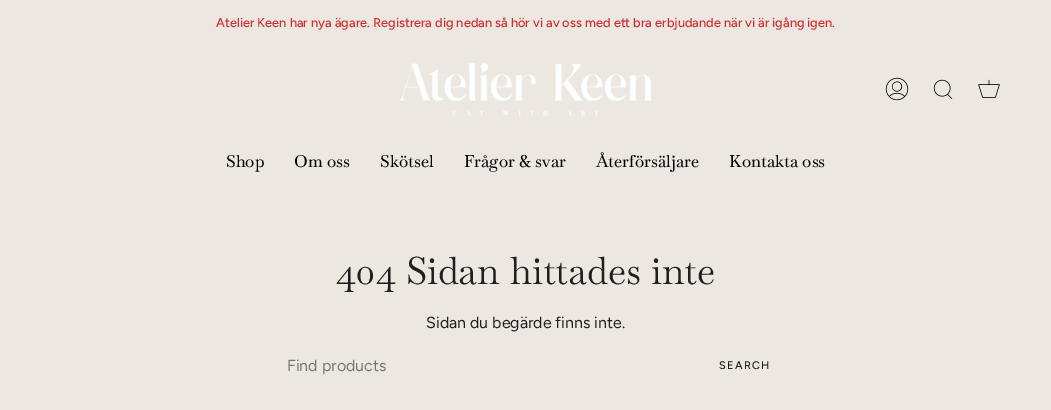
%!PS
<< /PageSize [1051 410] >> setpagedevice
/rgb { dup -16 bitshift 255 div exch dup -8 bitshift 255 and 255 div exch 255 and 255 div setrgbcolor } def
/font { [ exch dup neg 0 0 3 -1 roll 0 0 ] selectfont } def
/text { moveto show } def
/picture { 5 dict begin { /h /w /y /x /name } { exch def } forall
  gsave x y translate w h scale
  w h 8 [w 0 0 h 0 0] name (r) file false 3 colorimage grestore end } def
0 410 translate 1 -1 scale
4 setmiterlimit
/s1 { /Figtree-Medium 12.8 font 16#D02E2E rgb } def
/s2 { /Baskervville-Medium 16.75 font 16#000000 rgb } def
/s3 { /Baskervville-Regular 38 font 16#1F1F1F rgb } def
/s4 { /Figtree-Regular 16 font 16#1F1F1F rgb } def
/s5 { /Figtree-Regular 16 font 16#757575 rgb } def
16#ECE7E1 rgb
0 0 1051 410 rectfill
s1
(Atelier Keen har nya ägare. Registrera dig nedan så hör vi av oss med ett bra erbjudande när vi är igång igen.) 216 27 text
(pic1.raw) 400 62 252 54 picture
(pic2.raw) 885 77 24 24 picture
(pic3.raw) 933 79 20 20 picture
(pic4.raw) 978 79 22 19 picture
s2
(Shop) 226 167 text
(Om oss) 294 167 text
(Skötsel) 380 167 text
(Frågor & svar) 464 167 text
(Återförsäljare) 596 167 text
(Kontakta oss) 729 167 text
s3
(404 Sidan hittades inte) 335 284 text
s4
(Sidan du begärde finns inte.) 426 328 text
s5
(Find products) 287 371 text
/Figtree-Medium 11 font
16#1F1F1F rgb
719 369 moveto 1.25 0 (SEARCH) ashow
showpage
